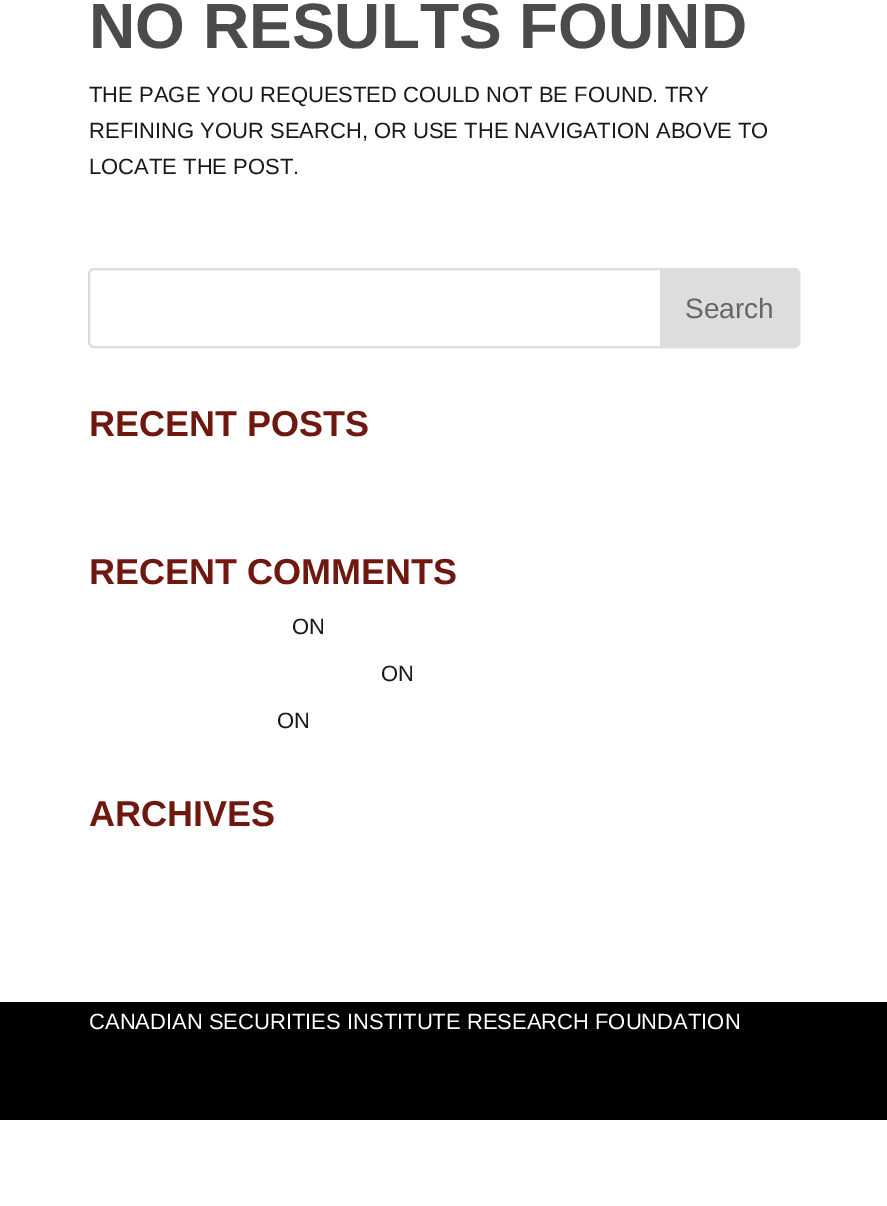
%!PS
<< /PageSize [887 1206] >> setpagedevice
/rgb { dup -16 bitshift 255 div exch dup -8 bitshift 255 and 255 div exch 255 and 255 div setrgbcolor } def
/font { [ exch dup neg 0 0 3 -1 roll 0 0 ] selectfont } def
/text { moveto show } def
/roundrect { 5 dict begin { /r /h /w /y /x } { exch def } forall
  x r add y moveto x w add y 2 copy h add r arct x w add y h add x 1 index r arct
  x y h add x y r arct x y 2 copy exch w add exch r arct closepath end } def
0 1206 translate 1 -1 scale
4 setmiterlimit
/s1 { /LiberationSans-Bold 64 font 16#4B4B4B rgb } def
/s2 { /LiberationSans-Regular 22 font 16#191919 rgb } def
/s3 { /LiberationSans-Regular 28 font 16#666666 rgb } def
/s4 { /LiberationSans-Bold 36 font 16#6E1810 rgb } def
/s5 { /LiberationSans-Regular 22 font 16#FFFFFF rgb } def
16#FFFFFF rgb
0 0 887 1206 rectfill
s1
(NO RESULTS FOUND) 89 48 text
s2
(THE PAGE YOU REQUESTED COULD NOT BE FOUND. TRY) 89 102 text
(REFINING YOUR SEARCH, OR USE THE NAVIGATION ABOVE TO) 89 138 text
(LOCATE THE POST.) 89 174 text
16#DDDDDD rgb
2 setlinewidth
89 269 710 78 5 roundrect stroke
661 269 moveto 794 269 lineto 797 269 799 271 799 274 curveto 799 342 lineto 799 345 797 347 794 347 curveto 661 347 lineto closepath gsave fill grestore
stroke
s3
(Search) 685 318 text
s4
(RECENT POSTS) 89 436 text
(RECENT COMMENTS) 89 584 text
s2
(ON) 292 634 text
(ON) 381 681 text
(ON) 277 728 text
s4
(ARCHIVES) 89 826 text
16#000000 rgb
0 1002 887 118 rectfill
s5
(CANADIAN SECURITIES INSTITUTE RESEARCH FOUNDATION) 89 1029 text
showpage
